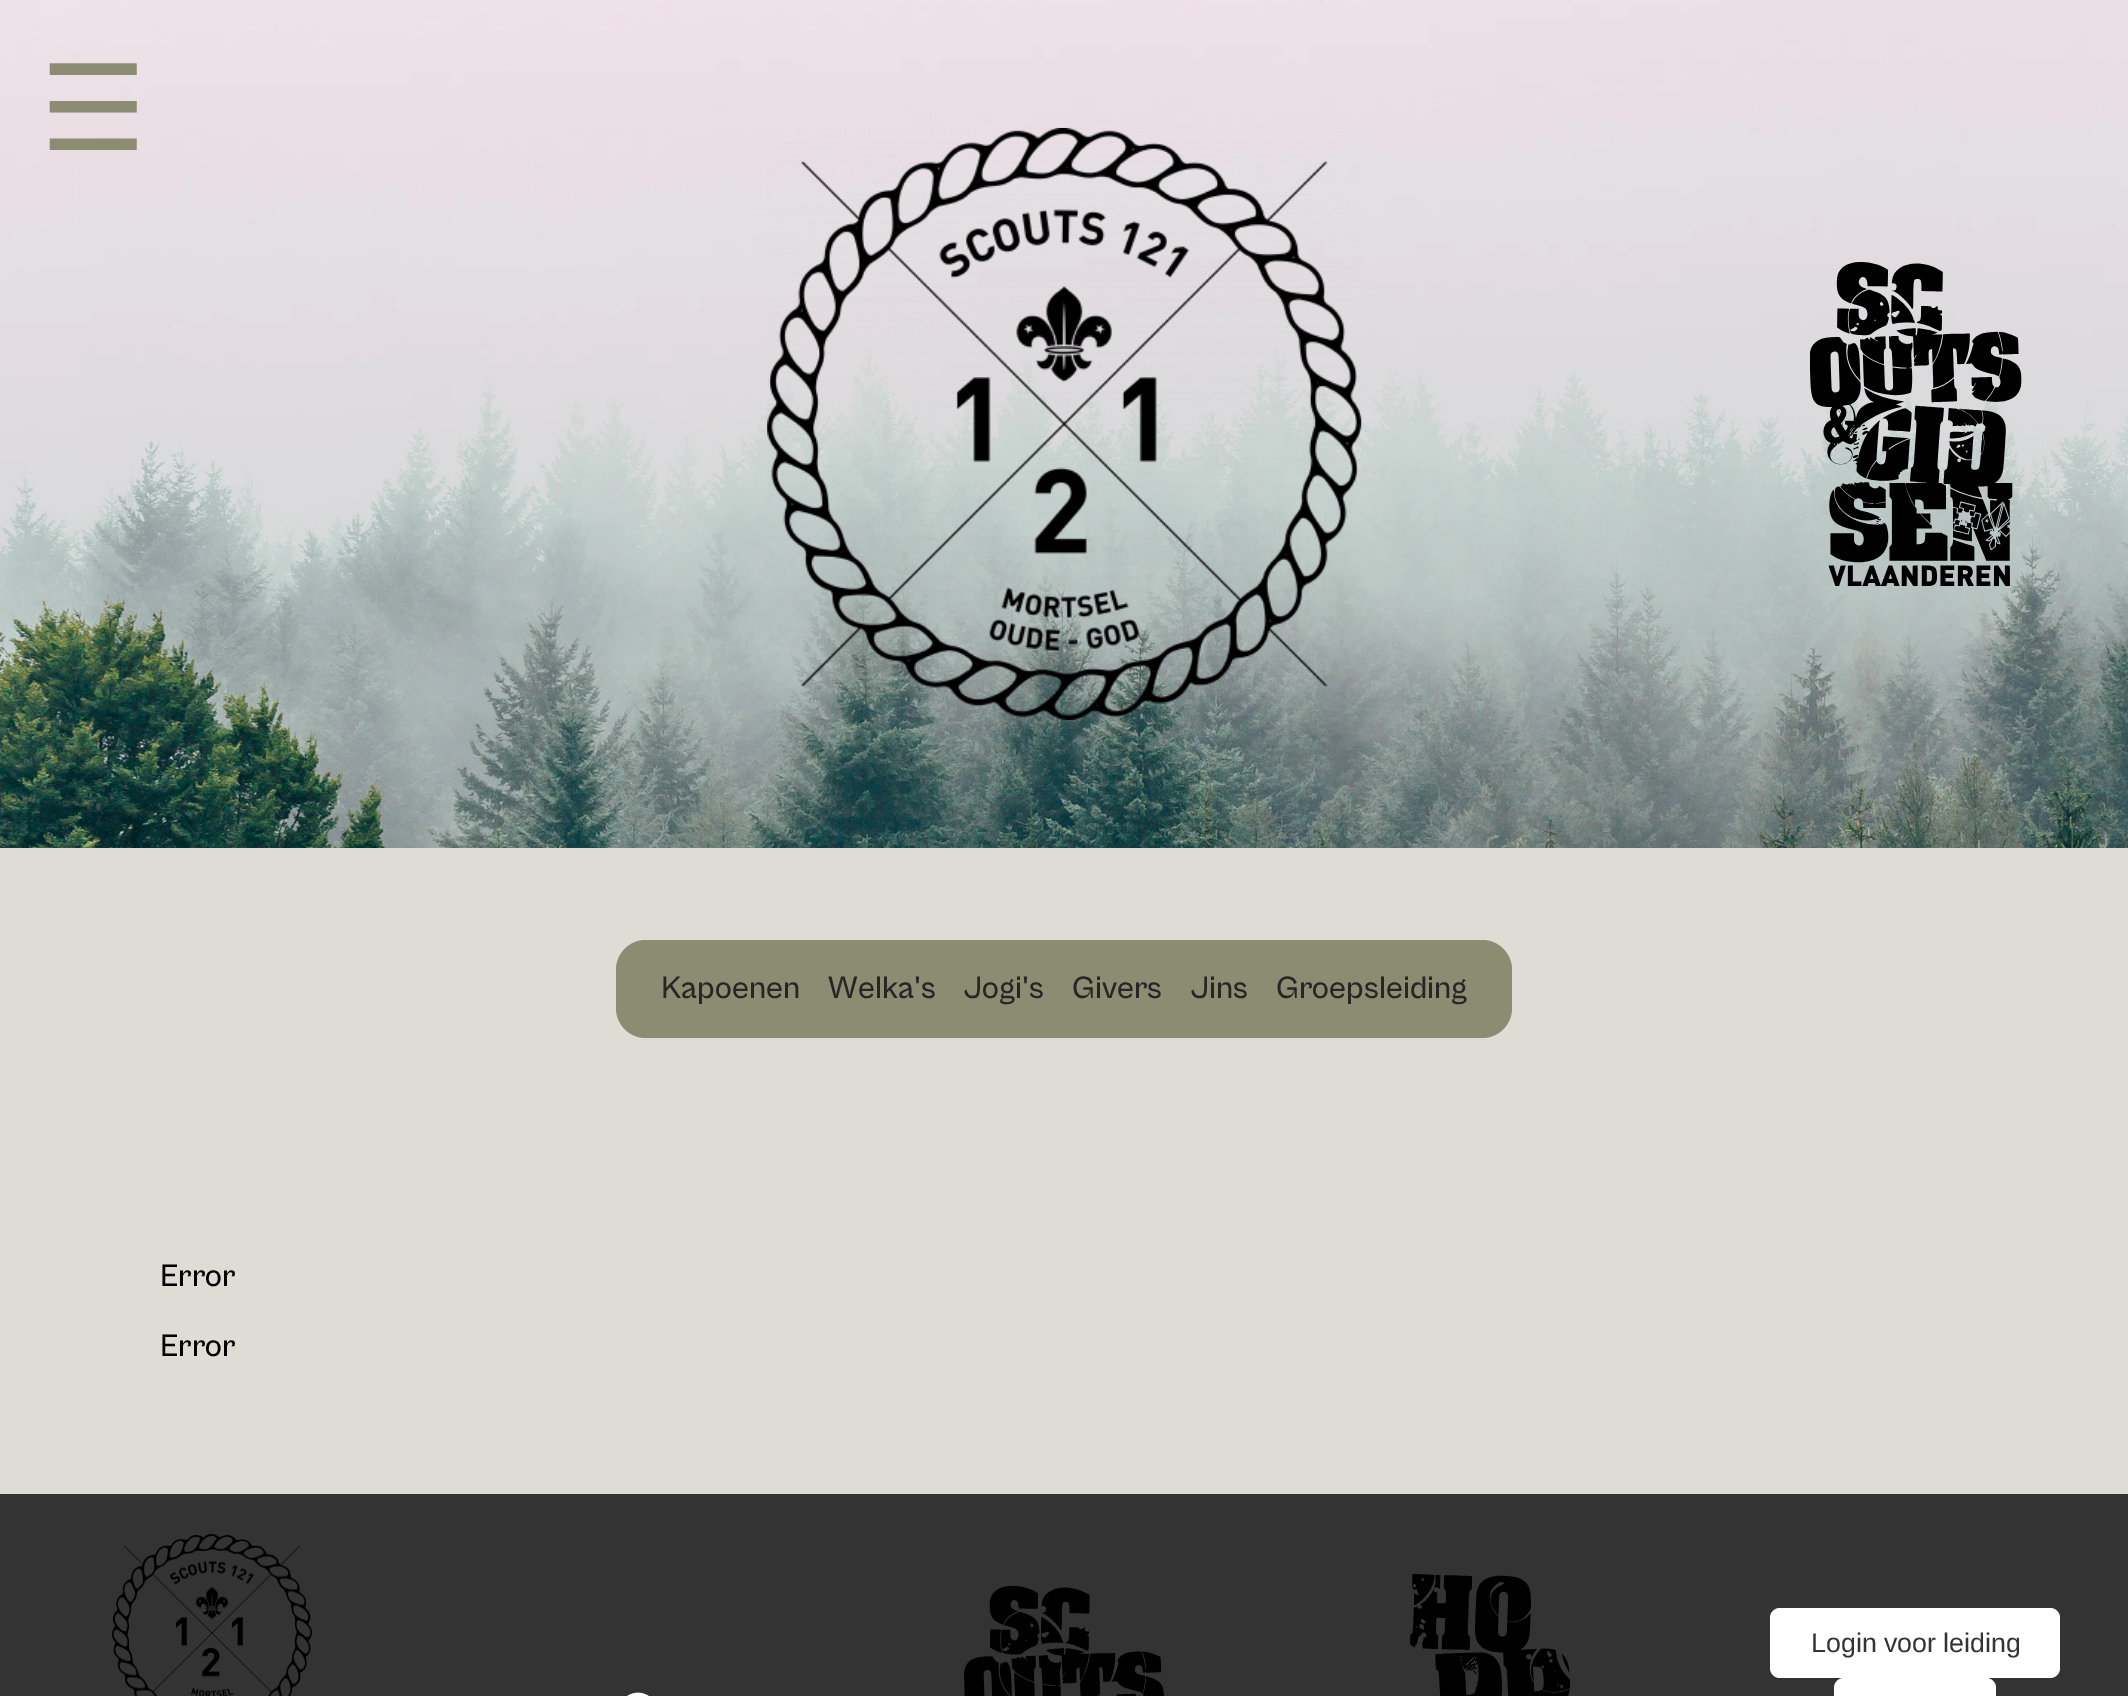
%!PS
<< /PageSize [2128 1696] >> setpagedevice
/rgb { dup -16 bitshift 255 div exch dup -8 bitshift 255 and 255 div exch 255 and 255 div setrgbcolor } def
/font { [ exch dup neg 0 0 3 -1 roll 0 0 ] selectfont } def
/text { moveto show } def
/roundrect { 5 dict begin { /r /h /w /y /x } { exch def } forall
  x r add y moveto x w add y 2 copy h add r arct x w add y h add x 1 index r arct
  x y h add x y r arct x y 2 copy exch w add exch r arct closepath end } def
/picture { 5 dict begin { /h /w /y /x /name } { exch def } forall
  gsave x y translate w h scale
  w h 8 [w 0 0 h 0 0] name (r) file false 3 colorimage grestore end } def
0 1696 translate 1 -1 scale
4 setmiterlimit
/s1 { /DejaVuSans-Regular 119 font 16#8C8C73 rgb } def
/s2 { /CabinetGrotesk-Medium 32 font 16#262626 rgb } def
/s3 { /CabinetGrotesk-Medium 32 font 16#000000 rgb } def
/s4 { /LiberationSans-Regular 26.75 font 16#333333 rgb } def
16#DDDDD5 rgb
0 0 2128 1696 rectfill
(pic1.raw) 0 0 2128 848 picture
s1
(☰) 40 150 text
(pic2.raw) 767 127 595 593 picture
(pic3.raw) 1810 262 212 324 picture
616 940 896 98 30 roundrect fill
s2
(Kapoenen) 661 998 text
(Welka's) 828 998 text
(Jogi's) 964 998 text
(Givers) 1072 998 text
(Jins) 1191 998 text
(Groepsleiding) 1276 998 text
s3
(Error) 160 1286 text
(Error) 160 1356 text
16#333333 rgb
0 1494 2128 202 rectfill
(pic4.raw) 112 1534 200 162 picture
(pic5.raw) 964 1586 200 110 picture
(pic6.raw) 1410 1574 160 122 picture
16#FFFFFF rgb
1770 1608 290 70 10 roundrect fill
s4
(Login voor leiding) 1811 1652 text
16#FFFFFF rgb
1834 1678 162 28 10 roundrect fill
(pic7.raw) 627 1692 22 4 picture
showpage
